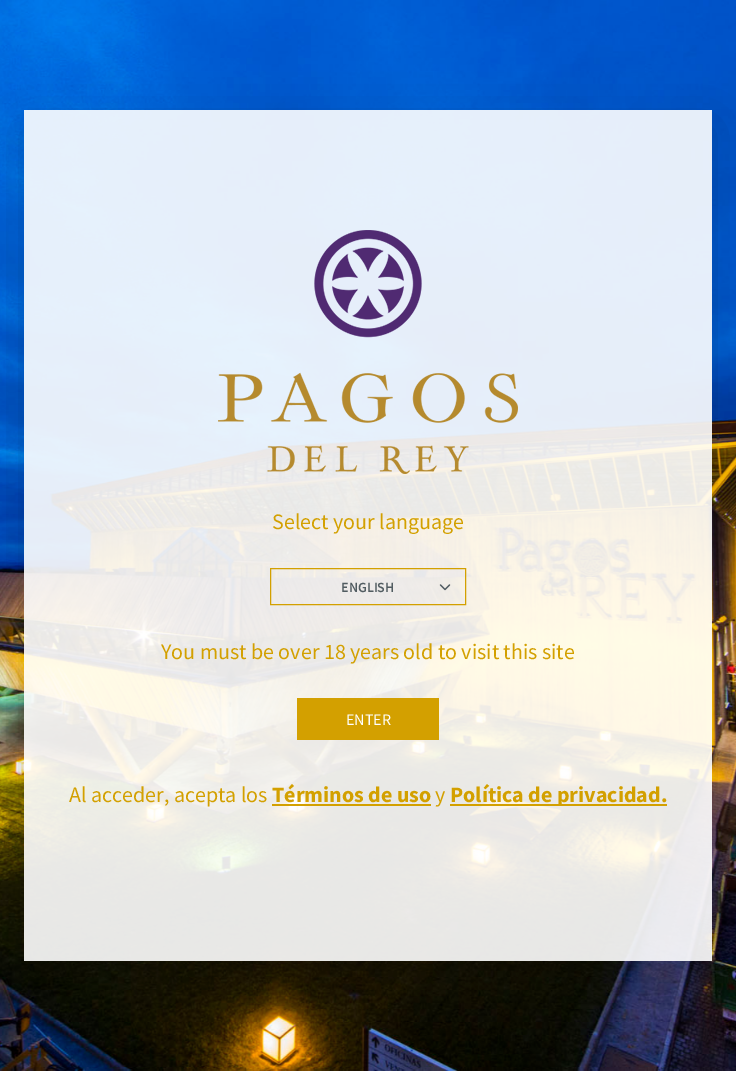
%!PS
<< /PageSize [736 1071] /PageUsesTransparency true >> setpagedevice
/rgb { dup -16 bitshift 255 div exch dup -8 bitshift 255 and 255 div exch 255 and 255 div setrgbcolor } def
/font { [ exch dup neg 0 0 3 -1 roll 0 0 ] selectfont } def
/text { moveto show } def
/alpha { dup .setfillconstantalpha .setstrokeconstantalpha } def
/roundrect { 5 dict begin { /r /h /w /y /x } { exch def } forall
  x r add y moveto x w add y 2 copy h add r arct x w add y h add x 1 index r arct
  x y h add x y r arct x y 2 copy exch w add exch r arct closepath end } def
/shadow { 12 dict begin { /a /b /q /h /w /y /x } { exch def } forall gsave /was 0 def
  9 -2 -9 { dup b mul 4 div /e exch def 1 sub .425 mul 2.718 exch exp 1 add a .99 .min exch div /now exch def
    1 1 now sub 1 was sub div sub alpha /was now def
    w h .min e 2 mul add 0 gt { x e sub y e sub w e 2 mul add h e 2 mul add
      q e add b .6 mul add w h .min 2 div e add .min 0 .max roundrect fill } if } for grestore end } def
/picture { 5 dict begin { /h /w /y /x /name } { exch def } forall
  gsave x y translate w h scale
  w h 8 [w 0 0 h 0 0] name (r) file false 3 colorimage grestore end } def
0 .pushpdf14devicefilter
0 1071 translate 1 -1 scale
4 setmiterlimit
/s1 { /SourceSansPro-Regular 22 font 16#D3A000 rgb } def
/s2 { /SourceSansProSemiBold-SemiBold 14 font 16#515C61 rgb } def
/s3 { /SourceSansPro-Regular 16 font 16#FFFFFF rgb } def
/s4 { /SourceSansPro-Bold 22 font 16#D3A000 rgb } def
16#FFFFFF rgb
0 0 736 1071 rectfill
(pic1.raw) 0 0 736 1071 picture
gsave
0 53 moveto 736 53 lineto 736 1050 lineto 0 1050 lineto closepath 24 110 moveto 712 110 lineto 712 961 lineto 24 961 lineto closepath eoclip newpath
16#000000 rgb
24 126 688 851 0 24 0.18 shadow
grestore
0.9 alpha
24 110 688 851 rectfill
1 alpha
(pic2.raw) 218 230 300 244 picture
s1
(Select your language) 272 529 text
270.5 568.5 195 36 rectstroke
s2
(ENGLISH) 341 592 text
(pic3.raw) 439 584 12 7 picture
s1
(You must be over 18 years old to visit this site) 161 659 text
297 698 142 42 rectfill
s3
(ENTER) 346 725 text
s1
(Al acceder, acepta los) 69 802 text
s4
(Términos de uso) 272 802 text
272 804 159 2 rectfill
s1
(y) 435 802 text
450 804 217 2 rectfill
s4
(Política de privacidad.) 450 802 text
.poppdf14devicefilter showpage
